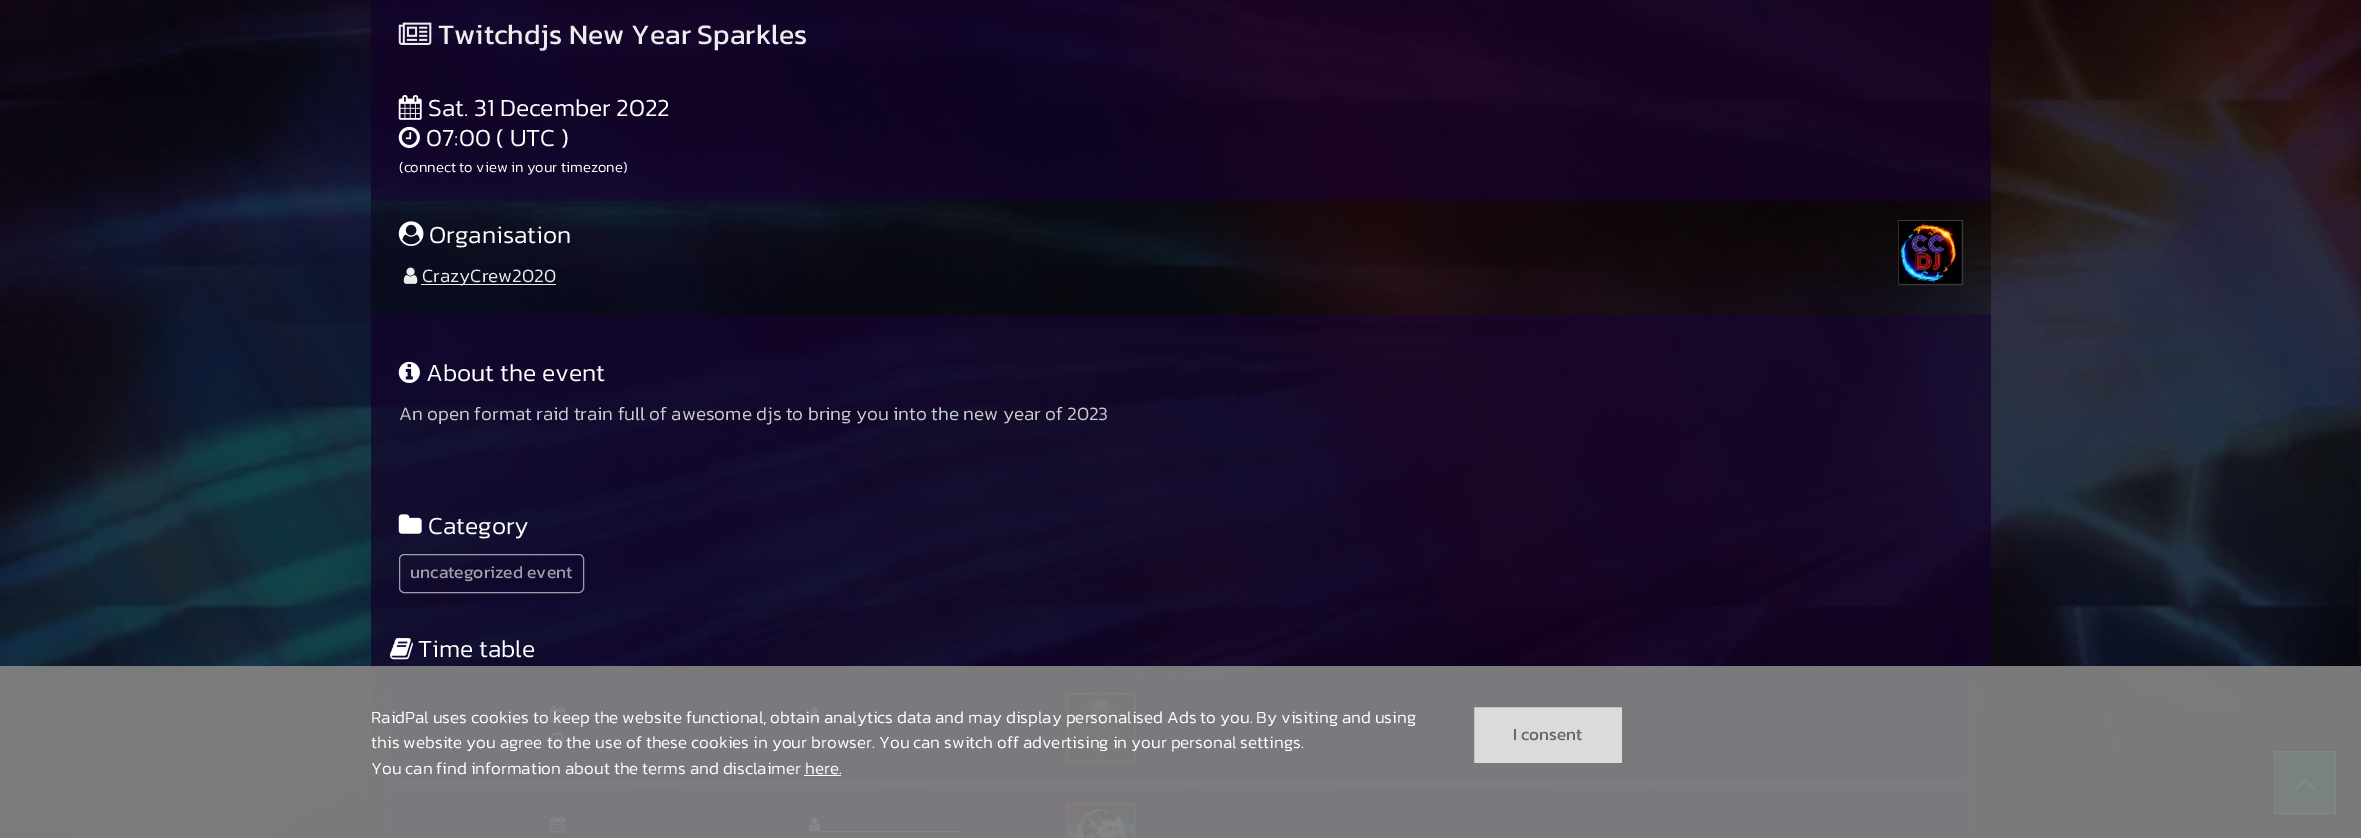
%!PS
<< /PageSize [2361 838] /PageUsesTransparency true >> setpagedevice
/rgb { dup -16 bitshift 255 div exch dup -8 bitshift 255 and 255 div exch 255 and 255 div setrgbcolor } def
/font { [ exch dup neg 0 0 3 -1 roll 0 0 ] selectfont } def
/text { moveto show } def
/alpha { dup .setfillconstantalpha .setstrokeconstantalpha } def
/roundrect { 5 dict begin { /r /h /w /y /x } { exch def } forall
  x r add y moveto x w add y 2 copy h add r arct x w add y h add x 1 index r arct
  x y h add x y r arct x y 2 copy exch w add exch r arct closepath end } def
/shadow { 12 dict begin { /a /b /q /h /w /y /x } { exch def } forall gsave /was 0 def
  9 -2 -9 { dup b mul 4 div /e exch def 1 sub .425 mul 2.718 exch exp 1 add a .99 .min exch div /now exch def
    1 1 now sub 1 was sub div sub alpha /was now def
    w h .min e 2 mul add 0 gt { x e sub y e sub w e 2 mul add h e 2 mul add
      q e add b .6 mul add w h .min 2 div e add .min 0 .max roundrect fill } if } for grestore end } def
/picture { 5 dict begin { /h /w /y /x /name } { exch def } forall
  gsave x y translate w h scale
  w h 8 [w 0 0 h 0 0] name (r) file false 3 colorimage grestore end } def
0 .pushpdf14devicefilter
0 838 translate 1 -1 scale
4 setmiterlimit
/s1 { /Kanit-Regular 28.5 font 16#ECECEC rgb } def
/s2 { /Kanit-Light 24.75 font 16#FFFFFF rgb } def
/s3 { /Kanit-Light 14.8 font 16#FFFFFF rgb } def
/s4 { /Kanit-Light 19 font 16#ECECEC rgb } def
/s5 { /Kanit-Light 19 font 16#C8CBCB rgb } def
/s6 { /Kanit-Regular 17.5 font 16#9F9DA9 rgb } def
/s7 { /Kanit-Light 17.1 font 16#FFFFFF rgb } def
/s8 { /Kanit-Regular 17.1 font 16#666666 rgb } def
16#FFFFFF rgb
0 0 2361 838 rectfill
(pic16.raw) 2358 0 3 838 picture
(pic1.raw) 0 0 2361 838 picture
0.7 alpha
16#120029 rgb
371 0 1620 75 rectfill
1 alpha
(pic2.raw) 398 22 34 23 picture
s1
(Twitchdjs New Year Sparkles) 438 44 text
0.7 alpha
16#120029 rgb
371 75 1620 126 rectfill
1 alpha
(pic3.raw) 398 95 24 25 picture
s2
(Sat. 31 December 2022) 428 116 text
(pic4.raw) 398 126 22 22 picture
(07:00 \( UTC \)) 426 146 text
s3
(\(connect to view in your timezone\)) 399 172 text
0.4 alpha
16#000000 rgb
371 201 1215 114 rectfill
1 alpha
(pic5.raw) 398 221 26 25 picture
s2
(Organisation) 429 243 text
(pic6.raw) 403 267 15 17 picture
16#ECECEC rgb
421 284 135 1 rectfill
s4
(CrazyCrew2020) 422 282 text
0.4 alpha
16#000000 rgb
1586 201 405 114 rectfill
1 alpha
16#38383A rgb
1898.5 220.5 64 64 rectstroke
(pic7.raw) 1898 221 64 63 picture
0.7 alpha
16#120029 rgb
371 315 1620 153 rectfill
1 alpha
(pic8.raw) 398 361 22 22 picture
s2
(About the event) 426 381 text
s5
(An open format raid train full of awesome djs to bring you into the new year of 2023) 399 420 text
0.7 alpha
16#120029 rgb
371 468 1620 147 rectfill
1 alpha
(pic9.raw) 398 514 24 20 picture
s2
(Category) 428 534 text
0.65 alpha
16#ECECEC rgb
399.5 554.5 184 38 4.5 roundrect stroke
1 alpha
s6
(uncategorized event) 410 578 text
0.7 alpha
16#120029 rgb
371 615 1620 223 rectfill
1 alpha
(pic10.raw) 390 638 23 22 picture
s2
(Time table) 418 657 text
16#1F1F1F rgb
398 694 1566 87 0 7.5 0.35 shadow
16#61619B rgb
398 696 1566 88 0 10 0.6 shadow
16#210048 rgb
390 676 1581 103 rectfill
(pic11.raw) 550 706 15 17 picture
(pic12.raw) 550 732 14 15 picture
(pic13.raw) 808 707 13 15 picture
16#ECECEC rgb
820 721 101 1 rectfill
16#A0551A rgb
3 setlinewidth
1067.5 694.5 67 67 rectstroke
(pic14.raw) 1068 694 66 66 picture
16#61619B rgb
398 808 1566 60 0 10 0.6 shadow
16#210048 rgb
390 788 1581 50 rectfill
(pic11.raw) 550 816 15 17 picture
(pic13.raw) 808 817 13 15 picture
16#ECECEC rgb
820 831 141 1 rectfill
16#A0551A rgb
1067.5 804.5 67 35 rectstroke
(pic15.raw) 1068 804 66 34 picture
16#0CA76D rgb
2274.5 751.5 moveto 2335.5 751.5 lineto 2335.5 813.5 lineto 2274.5 813.5 lineto closepath gsave fill grestore
16#ECECEC rgb
1 setlinewidth
stroke
(pic17.raw) 2295 778 20 12 picture
0.95 alpha
16#808080 rgb
0 666 2361 172 rectfill
1 alpha
s7
(RaidPal uses cookies to keep the website functional, obtain analytics data and may display personalised Ads to you. By visiting and using) 371 723 text
(this website you agree to the use of these cookies in your browser. You can switch off advertising in your personal settings.) 371 748 text
(You can find information about the terms and disclaimer here.) 371 774 text
804 775 37 1 rectfill
16#DBDBDB rgb
1472.5 705.5 moveto 1623.5 705.5 lineto 1623.5 764.5 lineto 1472.5 764.5 lineto closepath gsave fill grestore
16#7A7A7A rgb
3 setlinewidth
stroke
s8
(I consent) 1513 740 text
.poppdf14devicefilter showpage
